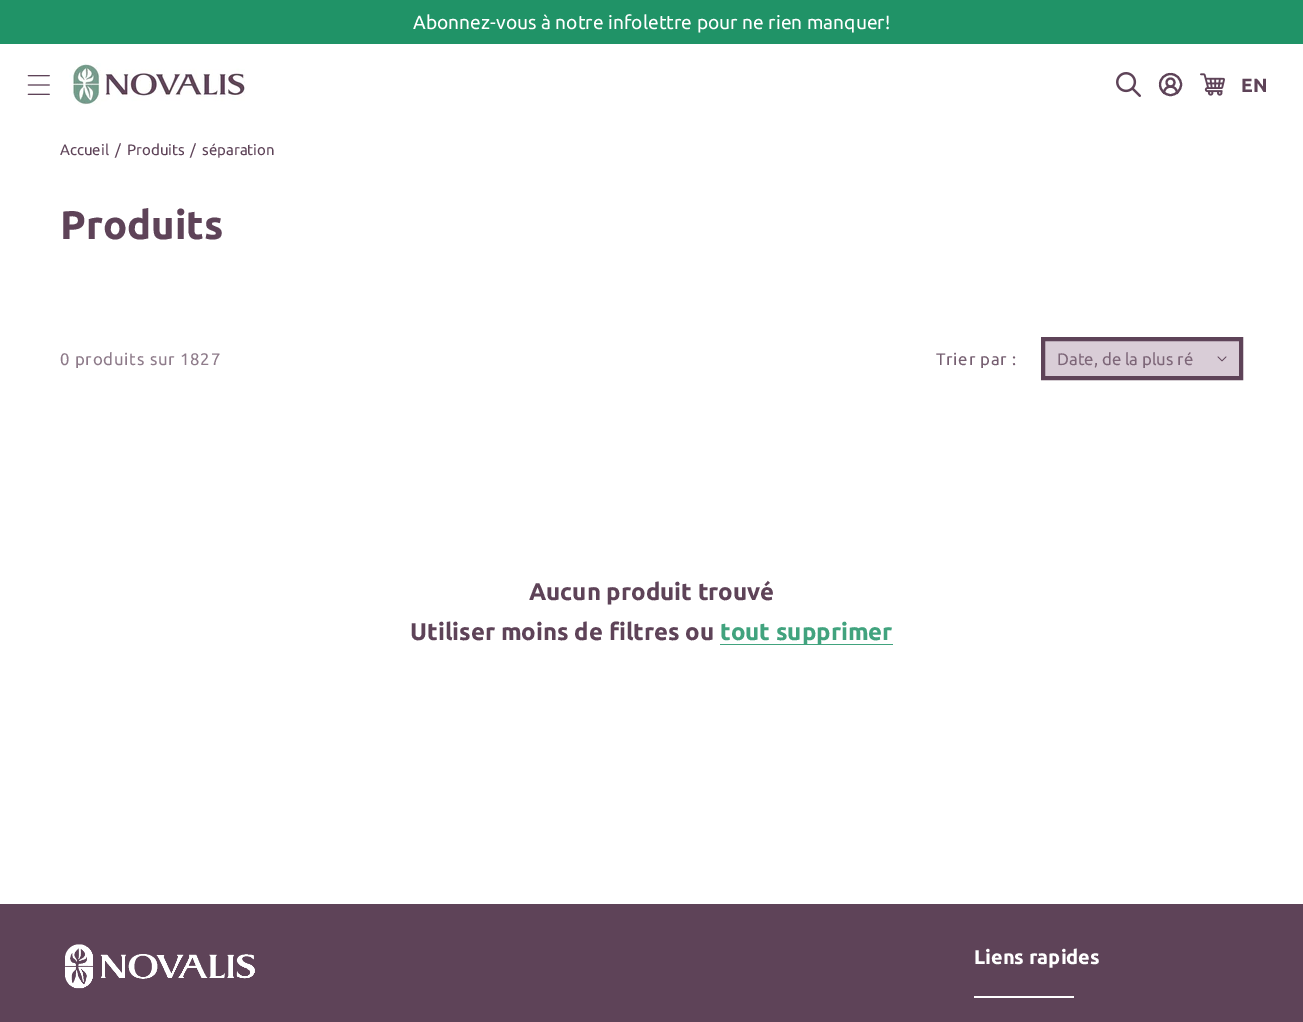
%!PS
<< /PageSize [1303 1022] >> setpagedevice
/rgb { dup -16 bitshift 255 div exch dup -8 bitshift 255 and 255 div exch 255 and 255 div setrgbcolor } def
/font { [ exch dup neg 0 0 3 -1 roll 0 0 ] selectfont } def
/text { moveto show } def
/circle { newpath 0 360 arc closepath } def
/picture { 5 dict begin { /h /w /y /x /name } { exch def } forall
  gsave x y translate w h scale
  w h 8 [w 0 0 h 0 0] name (r) file false 3 colorimage grestore end } def
0 1022 translate 1 -1 scale
4 setmiterlimit
/s1 { /Ubuntu-Regular 19.2 font 16#FFFFFF rgb } def
/s2 { /Ubuntu-Bold 19.2 font 16#5E4358 rgb } def
/s3 { /Ubuntu-Regular 15 font 16#5E4358 rgb } def
/s4 { /Ubuntu-Bold 40 font 16#5E4358 rgb } def
/s5 { /Ubuntu-Regular 16.75 font 16#7D6678 rgb } def
/s6 { /Ubuntu-Bold 24 font 16#5E4358 rgb } def
/s7 { /Ubuntu-Bold 24 font 16#41A37E rgb } def
/s8 { /Ubuntu-Bold 20 font 16#FFFFFF rgb } def
16#FFFFFF rgb
0 0 1303 1022 rectfill
16#209367 rgb
0 0 1303 44 rectfill
s1
(Abonnez-vous à notre infolettre pour ne rien manquer!) 413 29 text
(pic1.raw) 27 75 23 20 picture
(pic2.raw) 69 63 176 42 picture
(pic3.raw) 1116 72 25 25 picture
16#5E4358 rgb
2.1 setlinewidth
1 setlinecap
1 setlinejoin
1177 93 moveto 1177 84.5 1164 84.5 1164 93 curveto stroke
0 setlinecap
0 setlinejoin
1170.5 82.5 4 circle stroke
1170.5 84.5 10.5 circle stroke
(pic4.raw) 1200 73 25 23 picture
s2
(EN) 1241 92 text
s3
(Accueil) 60 155 text
(/) 115 155 text
(Produits) 127 155 text
(/) 190 155 text
(séparation) 202 155 text
s4
(Produits) 60 239 text
/Ubuntu-Regular 16.75 font
16#8E7B8A rgb
60 365 moveto 0.75 0 (0 produits sur 1827) ashow
16#765F71 rgb
936 365 moveto 0.75 0 (Trier par :) ashow
16#D9CDD7 rgb
1043 339 moveto 1241 339 lineto 1241 378 lineto 1043 378 lineto closepath gsave fill grestore
16#5E4358 rgb
4 setlinewidth
stroke
s5
(Date, de la plus ré) 1057 365 text
(pic5.raw) 1217 356 10 6 picture
s6
(Aucun produit trouvé) 529 600 text
(Utiliser moins de filtres ou) 410 640 text
16#41A37E rgb
720 644 173 1 rectfill
(tout supprimer) 720 640 text
16#5E4358 rgb
0 904 1303 118 rectfill
(pic6.raw) 64 944 191 45 picture
s8
(Liens rapides) 974 964 text
974 996 100 2 rectfill
showpage
